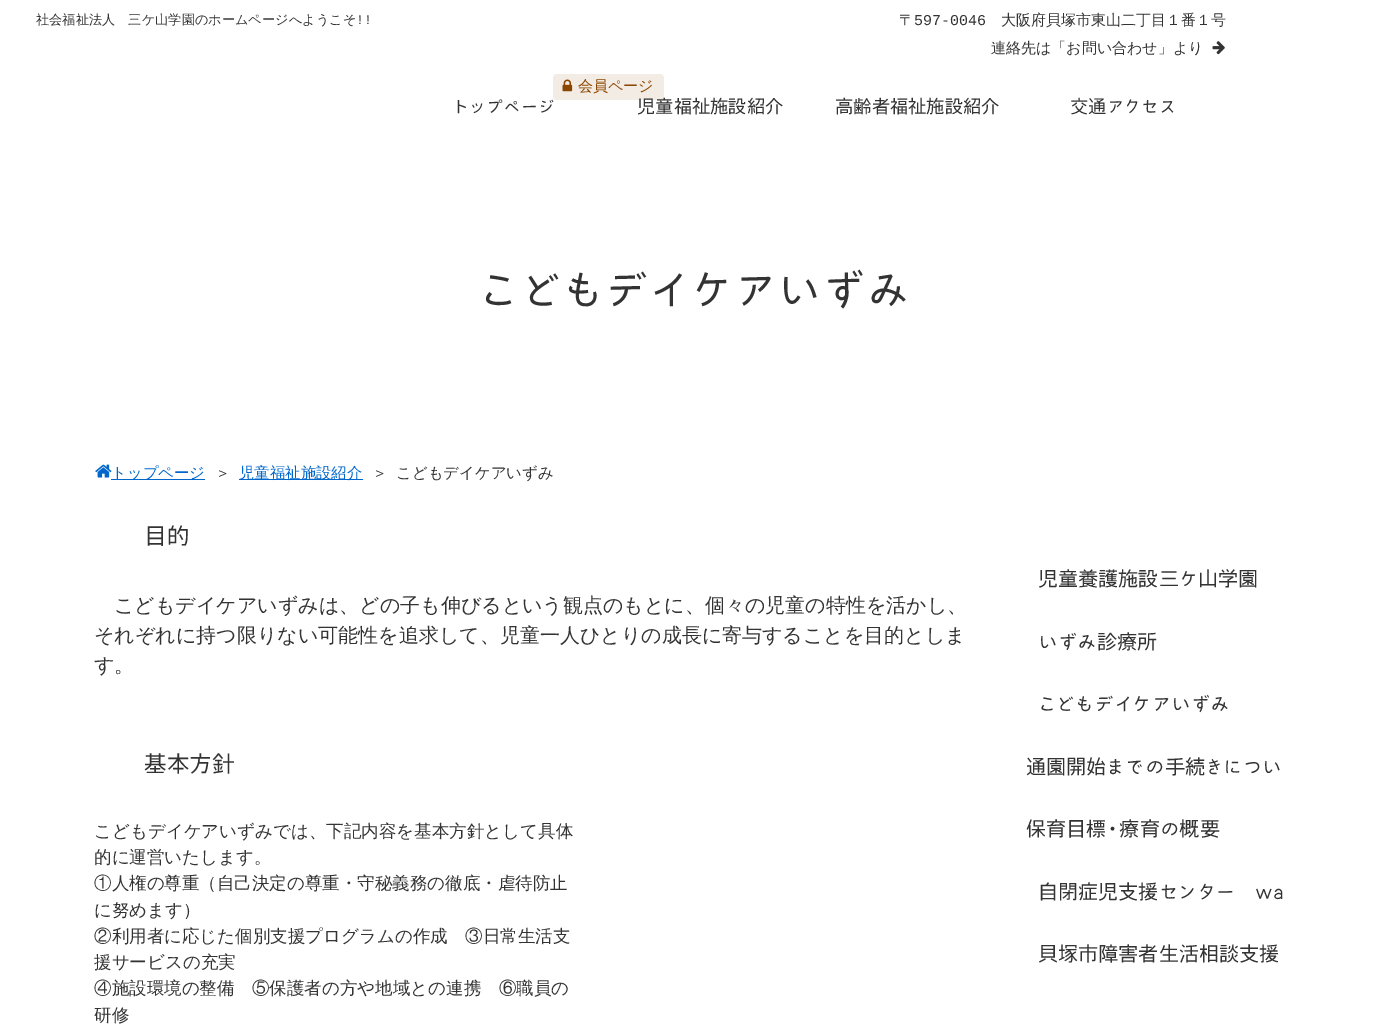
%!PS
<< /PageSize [1388 1024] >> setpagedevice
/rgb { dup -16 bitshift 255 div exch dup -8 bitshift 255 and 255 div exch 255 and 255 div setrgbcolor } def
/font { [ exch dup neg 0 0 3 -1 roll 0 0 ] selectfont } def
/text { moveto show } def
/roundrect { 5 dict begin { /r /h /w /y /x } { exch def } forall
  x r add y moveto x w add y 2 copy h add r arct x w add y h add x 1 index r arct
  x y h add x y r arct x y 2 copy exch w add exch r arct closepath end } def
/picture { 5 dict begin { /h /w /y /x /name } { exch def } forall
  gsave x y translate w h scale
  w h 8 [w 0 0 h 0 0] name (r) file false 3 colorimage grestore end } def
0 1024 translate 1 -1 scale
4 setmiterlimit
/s1 { /WenQuanYiZenHei-Medium 13.2 font 16#333333 rgb } def
/s2 { /LiberationMono-Regular 13.2 font 16#333333 rgb } def
/s3 { /WenQuanYiZenHei-Medium 15 font 16#333333 rgb } def
/s4 { /LiberationMono-Regular 15 font 16#333333 rgb } def
/s5 { /WenQuanYiZenHei-Medium 15 font 16#8B4600 rgb } def
/s6 { /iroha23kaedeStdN-Regular 18.25 font 16#333333 rgb } def
/s7 { /iroha23kaedeStdN-Regular 45.25 font 16#333333 rgb } def
/s8 { /WenQuanYiZenHei-Medium 15.4 font 16#0066CC rgb } def
/s9 { /WenQuanYiZenHei-Medium 15.4 font 16#333333 rgb } def
/s10 { /iroha23kaedeStdN-Regular 22.5 font 16#333333 rgb } def
/s11 { /WenQuanYiZenHei-Medium 20 font 16#333333 rgb } def
/s12 { /WenQuanYiZenHei-Medium 17.5 font 16#333333 rgb } def
/s13 { /iroha23kaedeStdN-Regular 20.1 font 16#333333 rgb } def
16#FFFFFF rgb
0 0 1388 1024 rectfill
s1
(社会福祉法人　三ケ山学園のホームページへようこそ) 36 24 text
s2
(!!) 356 24 text
s3
(〒) 899 25 text
s4
(597-0046) 914 25 text
s3
(大阪府貝塚市東山二丁目１番１号) 1001 25 text
(連絡先は「お問い合わせ」より) 991 53 text
(pic1.raw) 1212 41 13 14 picture
16#F3ECE5 rgb
553 74 111 26 4 roundrect fill
(pic2.raw) 562 79 11 13 picture
s5
(会員ページ) 578 91 text
s6
(トップページ) 453 113 text
(児童福祉施設紹介) 637 113 text
(高齢者福祉施設紹介) 835 113 text
(交通アクセス) 1070 113 text
s7
(こどもデイケアいずみ) 478 306 text
(pic3.raw) 95 464 17 14 picture
16#0066CC rgb
111 479 94 1 rectfill
s8
(トップページ) 111 478 text
s9
(＞) 215 478 text
16#0066CC rgb
239 479 124 1 rectfill
(児童福祉施設紹介) 239 478 text
s9
(＞) 372 478 text
(こどもデイケアいずみ) 396 478 text
s10
(目的) 144 544 text
s11
(こどもデイケアいずみは、どの子も伸びるという観点のもとに、個々の児童の特性を活かし、) 114 612 text
(それぞれに持つ限りない可能性を追求して、児童一人ひとりの成長に寄与することを目的としま) 94 642 text
(す。) 94 672 text
s10
(基本方針) 144 772 text
s12
(こどもデイケアいずみでは、下記内容を基本方針として具体) 94 837 text
(的に運営いたします。) 94 863 text
(①人権の尊重（自己決定の尊重・守秘義務の徹底・虐待防止) 94 889 text
(に努めます）) 94 916 text
(②利用者に応じた個別支援プログラムの作成　③日常生活支) 94 942 text
(援サービスの充実) 94 968 text
(④施設環境の整備　⑤保護者の方や地域との連携　⑥職員の) 94 994 text
(研修) 94 1021 text
s13
(児童養護施設三ケ山学園) 1038 586 text
(いずみ診療所) 1038 649 text
(こどもデイケアいずみ) 1038 711 text
(通園開始までの手続きについ) 1026 774 text
(保育目標・療育の概要) 1026 836 text
(自閉症児支援センター　wa) 1038 899 text
(貝塚市障害者生活相談支援) 1038 961 text
showpage
